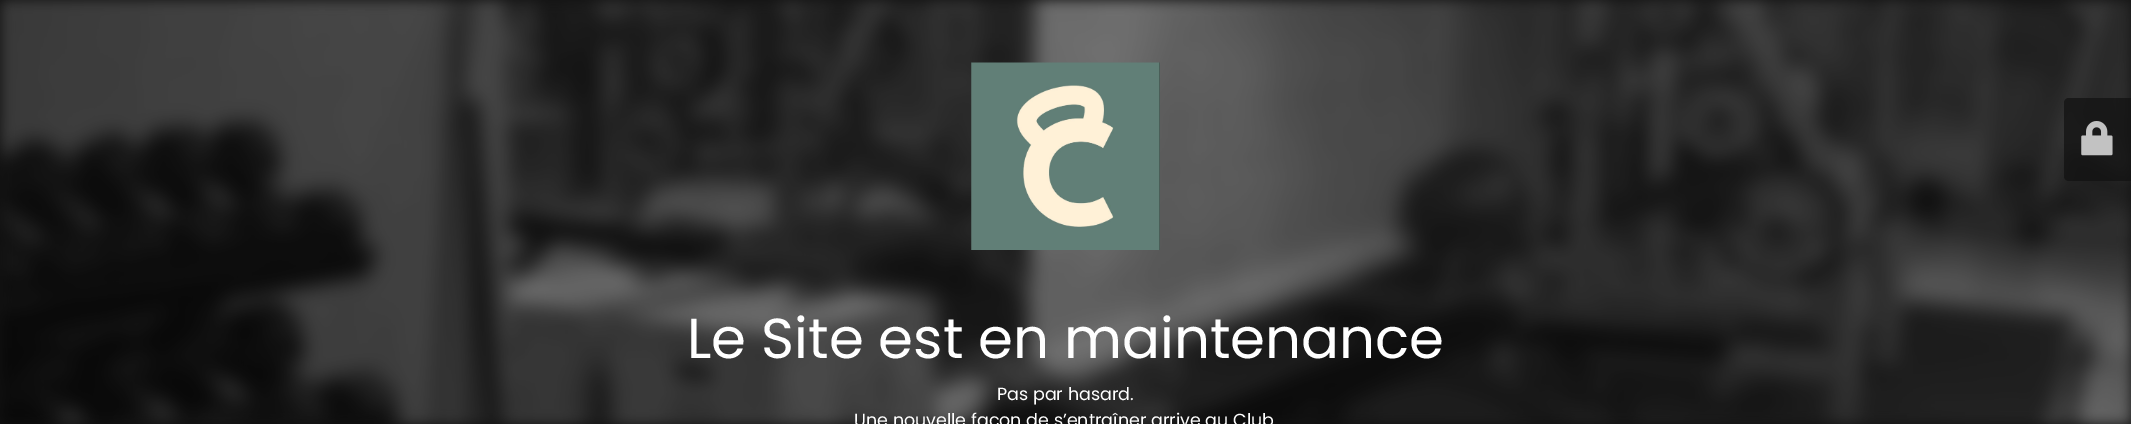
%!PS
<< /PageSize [2131 424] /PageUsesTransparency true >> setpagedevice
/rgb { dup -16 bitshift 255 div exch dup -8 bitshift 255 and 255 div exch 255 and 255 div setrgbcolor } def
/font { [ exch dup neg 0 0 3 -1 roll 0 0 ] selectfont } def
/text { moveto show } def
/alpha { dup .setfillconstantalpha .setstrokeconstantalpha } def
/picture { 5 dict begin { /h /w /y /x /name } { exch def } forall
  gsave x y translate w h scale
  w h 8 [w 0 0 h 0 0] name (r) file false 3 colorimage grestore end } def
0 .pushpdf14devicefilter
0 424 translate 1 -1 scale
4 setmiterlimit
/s1 { /Poppins-Regular 56.25 font 16#FFFFFF rgb } def
/s2 { /Poppins-Regular 17.5 font 16#FFFFFF rgb } def
16#111111 rgb
0 0 2131 424 rectfill
(pic2.raw) 0 0 2131 424 picture
0.73 alpha
2069 98 moveto 2131 98 lineto 2131 181 lineto 2069 181 lineto 2066 181 2064 179 2064 176 curveto 2064 103 lineto 2064 100 2066 98 2069 98 curveto closepath fill
1 alpha
(pic1.raw) 2081 121 32 35 picture
(pic3.raw) 971 62 189 188 picture
s1
(Le Site est en maintenance) 687 358 text
s2
(Pas par hasard.) 997 400 text
(Une nouvelle façon de s’entraîner arrive au Club) 854 426 text
.poppdf14devicefilter showpage
